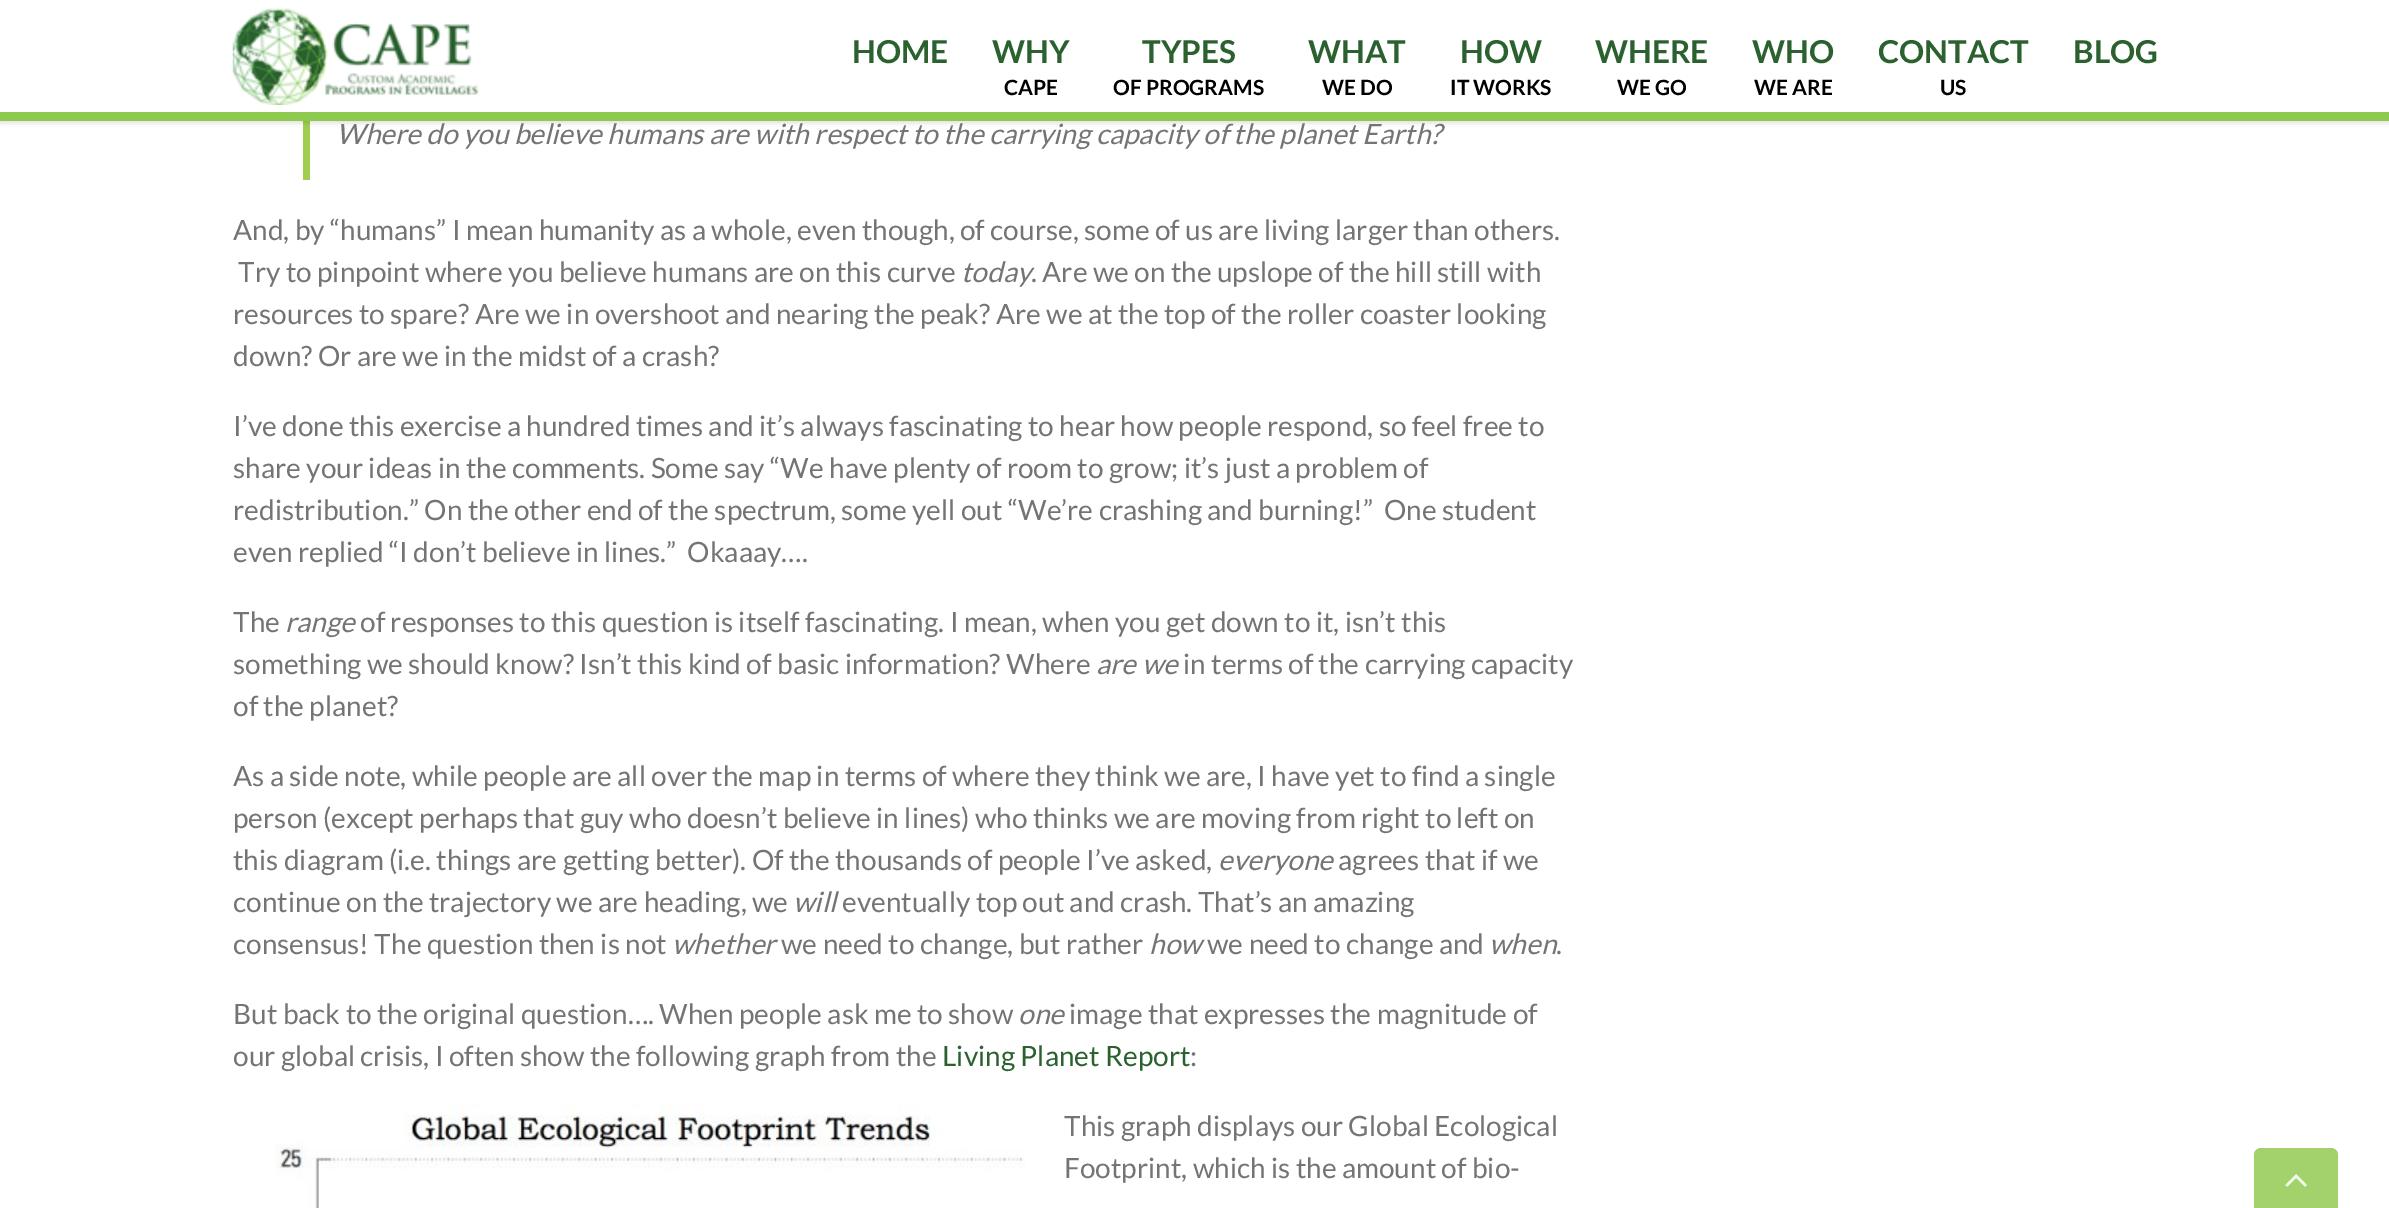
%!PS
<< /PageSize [2389 1208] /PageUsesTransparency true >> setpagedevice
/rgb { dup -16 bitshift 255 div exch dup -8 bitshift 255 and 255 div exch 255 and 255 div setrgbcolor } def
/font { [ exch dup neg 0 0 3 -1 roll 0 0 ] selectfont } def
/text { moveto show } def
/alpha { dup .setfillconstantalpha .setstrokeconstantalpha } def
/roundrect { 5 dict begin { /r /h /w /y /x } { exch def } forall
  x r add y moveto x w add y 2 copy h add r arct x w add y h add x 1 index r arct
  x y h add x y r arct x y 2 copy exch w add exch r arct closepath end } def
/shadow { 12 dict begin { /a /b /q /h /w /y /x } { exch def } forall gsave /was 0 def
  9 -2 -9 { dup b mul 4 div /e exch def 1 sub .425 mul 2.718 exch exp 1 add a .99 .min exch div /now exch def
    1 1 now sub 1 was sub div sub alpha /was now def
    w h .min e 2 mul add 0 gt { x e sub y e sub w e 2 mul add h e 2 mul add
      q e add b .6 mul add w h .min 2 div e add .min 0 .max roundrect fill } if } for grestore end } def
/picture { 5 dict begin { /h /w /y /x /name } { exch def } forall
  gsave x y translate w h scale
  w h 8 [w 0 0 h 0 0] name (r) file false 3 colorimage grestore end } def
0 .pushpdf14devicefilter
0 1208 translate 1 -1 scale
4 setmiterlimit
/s1 { /Lato-Bold 31.5 font 16#2A612F rgb } def
/s2 { /Lato-Bold 21 font 16#000000 rgb } def
/s3 { /Lato-Italic 28 font 16#747474 rgb } def
/s4 { /Lato-Regular 28 font 16#747474 rgb } def
/s5 { /Lato-Regular 28 font 16#2A612F rgb } def
16#FFFFFF rgb
0 0 2389 1208 rectfill
16#A0CE4E rgb
303 121 7 59 rectfill
16#000000 rgb
0 2 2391 121 0 2.5 0.12 shadow
16#FFFFFF rgb
0 0 2389 112 rectfill
16#8ECA4F rgb
0 112 2389 9 rectfill
(pic1.raw) 232 8 247 97 picture
s1
(HOME) 852 63 text
(WHY) 992 63 text
s2
(CAPE) 1004 95 text
s1
(TYPES) 1142 63 text
s2
(OF PROGRAMS) 1113 95 text
s1
(WHAT) 1308 63 text
s2
(WE DO) 1322 95 text
s1
(HOW) 1460 63 text
s2
(IT WORKS) 1450 95 text
s1
(WHERE) 1595 63 text
s2
(WE GO) 1617 95 text
s1
(WHO) 1752 63 text
s2
(WE ARE) 1754 95 text
s1
(CONTACT) 1878 63 text
s2
(US) 1940 95 text
s1
(BLOG) 2073 63 text
s3
(Where do you believe humans are with respect to the carrying capacity of the planet Earth?) 336 144 text
s4
(And, by “humans” I mean humanity as a whole, even though, of course, some of us are living larger than others.) 233 240 text
(Try to pinpoint where you believe humans are on this curve) 238 282 text
s3
(today) 961 282 text
s4
(. Are we on the upslope of the hill still with) 1031 282 text
(resources to spare? Are we in overshoot and nearing the peak? Are we at the top of the roller coaster looking) 233 324 text
(down? Or are we in the midst of a crash?) 233 366 text
(I’ve done this exercise a hundred times and it’s always fascinating to hear how people respond, so feel free to) 233 436 text
(share your ideas in the comments. Some say “We have plenty of room to grow; it’s just a problem of) 233 478 text
(redistribution.” On the other end of the spectrum, some yell out “We’re crashing and burning!”  One student) 233 520 text
(even replied “I don’t believe in lines.”  Okaaay….) 233 562 text
(The) 233 632 text
s3
(range) 285 632 text
s4
(of responses to this question is itself fascinating. I mean, when you get down to it, isn’t this) 360 632 text
(something we should know? Isn’t this kind of basic information? Where) 233 674 text
s3
(are we) 1096 674 text
s4
(in terms of the carrying capacity) 1183 674 text
(of the planet?) 233 716 text
(As a side note, while people are all over the map in terms of where they think we are, I have yet to find a single) 233 786 text
(person \(except perhaps that guy who doesn’t believe in lines\) who thinks we are moving from right to left on) 233 828 text
(this diagram \(i.e. things are getting better\). Of the thousands of people I’ve asked,) 233 870 text
s3
(everyone) 1218 870 text
s4
(agrees that if we) 1338 870 text
(continue on the trajectory we are heading, we) 233 912 text
s3
(will) 793 912 text
s4
(eventually top out and crash. That’s an amazing) 842 912 text
(consensus! The question then is not) 233 954 text
s3
(whether) 672 954 text
s4
(we need to change, but rather) 781 954 text
s3
(how) 1149 954 text
s4
(we need to change and) 1207 954 text
s3
(when) 1489 954 text
s4
(.) 1556 954 text
(But back to the original question…. When people ask me to show) 233 1024 text
s3
(one) 1018 1024 text
s4
(image that expresses the magnitude of) 1069 1024 text
(our global crisis, I often show the following graph from the) 233 1066 text
s5
(Living Planet Report) 942 1066 text
s4
(:) 1190 1066 text
(pic2.raw) 275 1104 751 104 picture
(This graph displays our Global Ecological) 1064 1136 text
(Footprint, which is the amount of bio-) 1064 1178 text
16#A3D16C rgb
2261 1148 moveto 2331 1148 lineto 2335 1148 2338 1151 2338 1155 curveto 2338 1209 lineto 2254 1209 lineto 2254 1155 lineto 2254 1151 2257 1148 2261 1148 curveto closepath fill
(pic3.raw) 2285 1174 22 13 picture
.poppdf14devicefilter showpage
